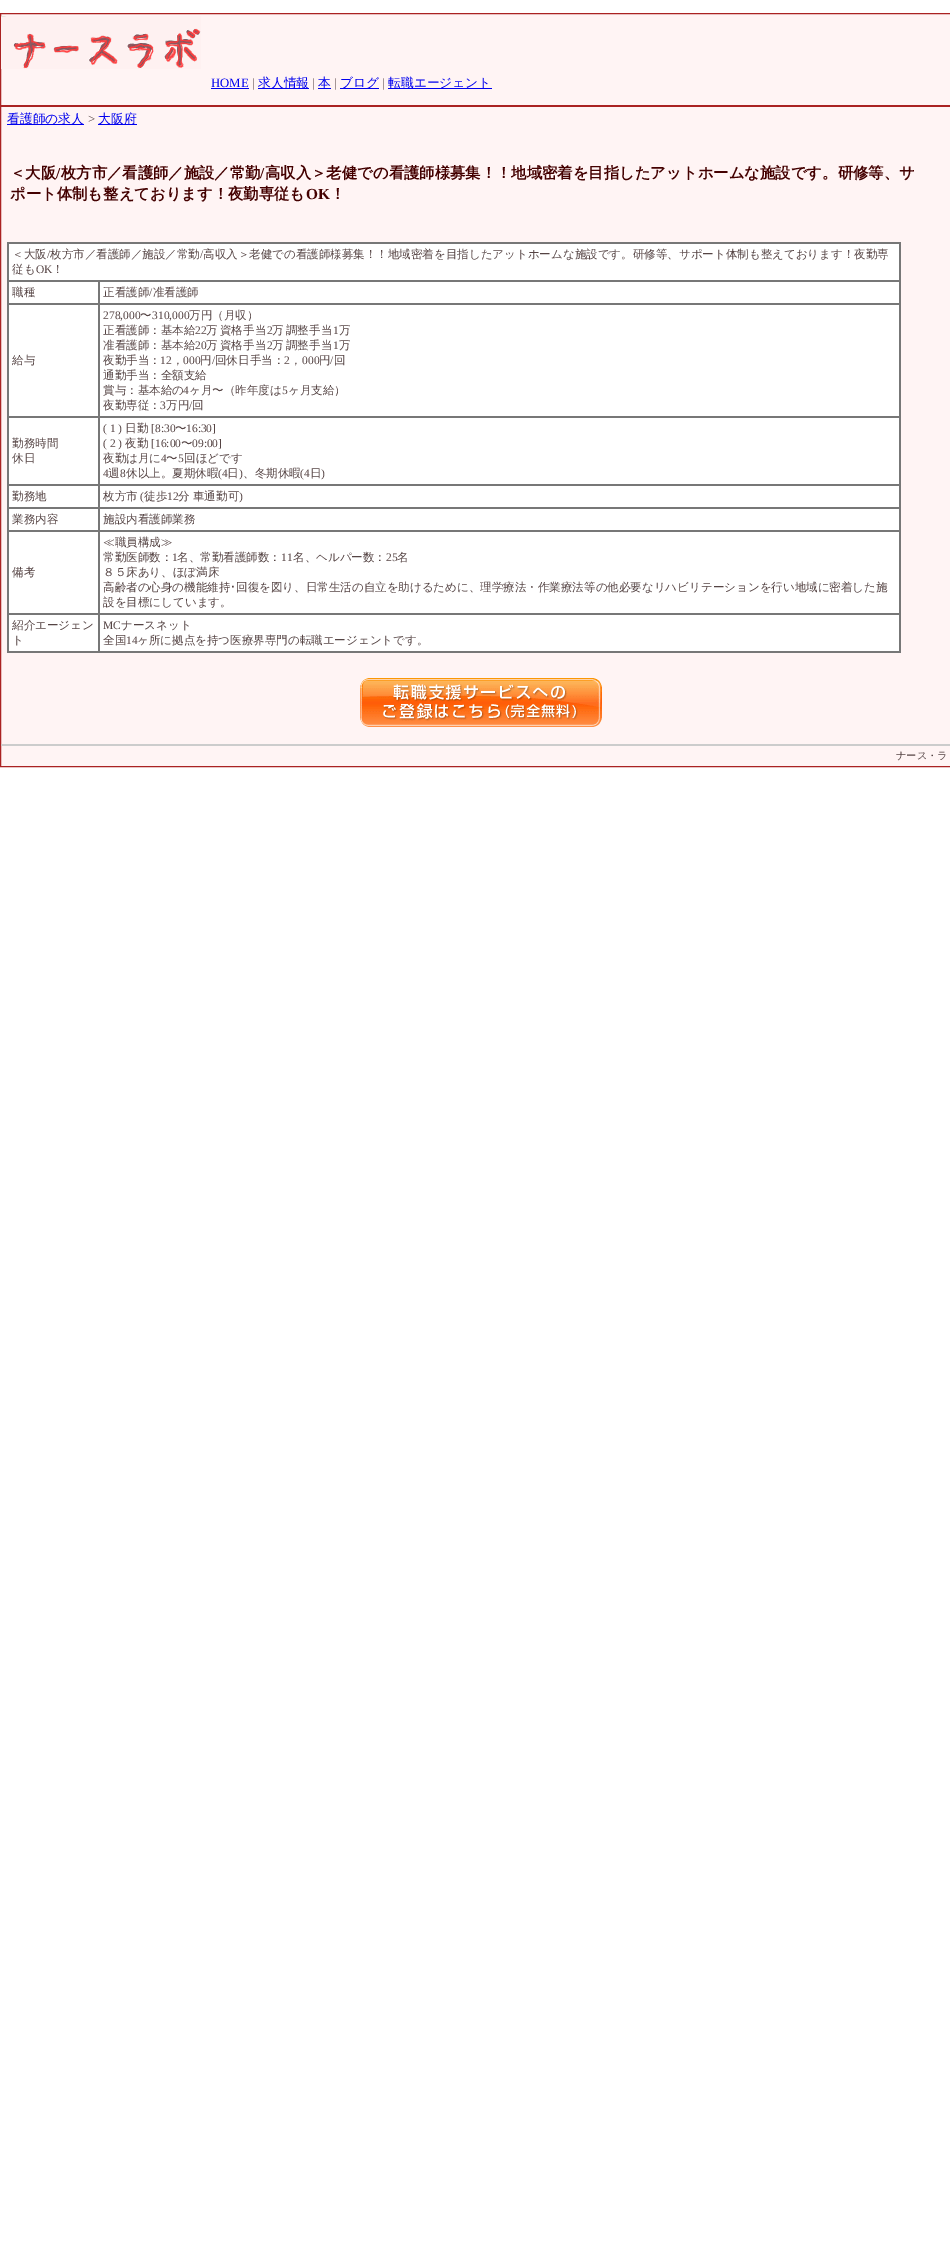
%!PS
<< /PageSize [950 2252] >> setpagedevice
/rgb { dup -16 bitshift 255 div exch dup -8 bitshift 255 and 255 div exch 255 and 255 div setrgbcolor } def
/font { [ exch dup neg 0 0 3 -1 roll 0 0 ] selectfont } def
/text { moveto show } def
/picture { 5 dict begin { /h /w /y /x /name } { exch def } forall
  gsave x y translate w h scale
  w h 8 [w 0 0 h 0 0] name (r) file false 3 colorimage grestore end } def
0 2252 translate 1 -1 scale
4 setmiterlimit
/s1 { /LiberationSerif-Regular 12.75 font 16#0000EE rgb } def
/s2 { /LiberationSerif-Regular 12.75 font 16#554444 rgb } def
/s3 { /WenQuanYiZenHei-Medium 12.75 font 16#0000EE rgb } def
/s4 { /WenQuanYiZenHei-Bold 15.35 font 16#440000 rgb } def
/s5 { /LiberationSerif-Bold 15.35 font 16#440000 rgb } def
/s6 { /WenQuanYiZenHei-Medium 11.52 font 16#554444 rgb } def
/s7 { /LiberationSerif-Regular 11.52 font 16#554444 rgb } def
/s8 { /IPAGothic-Regular 11.52 font 16#554444 rgb } def
/s9 { /WenQuanYiZenHei-Medium 10.25 font 16#554444 rgb } def
16#FFFFFF rgb
0 0 950 2252 rectfill
16#FFF4F4 rgb
0.5 13.5 moveto 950.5 13.5 lineto 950.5 766.5 lineto 0.5 766.5 lineto closepath gsave fill grestore
16#AA2222 rgb
stroke
1 105 949 2 rectfill
(pic1.raw) 1 16 200 53 picture
s1
(HOME) 211 87 text
211 88 38 1 rectfill
s2
(|) 252 87 text
16#0000EE rgb
258 88 51 1 rectfill
s3
(求人情報) 258 87 text
s2
(|) 312 87 text
16#0000EE rgb
318 88 13 1 rectfill
s3
(本) 318 87 text
s2
(|) 334 87 text
16#0000EE rgb
340 88 39 1 rectfill
s3
(ブログ) 340 87 text
s2
(|) 382 87 text
16#0000EE rgb
388 88 104 1 rectfill
s3
(転職エージェント) 388 87 text
7 124 77 1 rectfill
(看護師の求人) 7 123 text
s2
(>) 88 123 text
16#0000EE rgb
98 124 39 1 rectfill
s3
(大阪府) 98 123 text
s4
(＜大阪) 10 178 text
s5
(/) 56 178 text
s4
(枚方市／看護師／施設／常勤) 61 178 text
s5
(/) 260 178 text
s4
(高収入＞老健での看護師様募集！！地域密着を目指したアットホームな施設です。研修等、サ) 265 178 text
(ポート体制も整えております！夜勤専従も) 10 199 text
s5
(OK) 306 199 text
s4
(！) 330 199 text
16#777777 rgb
7 242 894 411 rectfill
16#FFFFFF rgb
9 244 890 36 rectfill
s6
(＜大阪) 12 258 text
s7
(/) 47 258 text
s6
(枚方市／看護師／施設／常勤) 50 258 text
s7
(/) 200 258 text
s6
(高収入＞老健での看護師様募集！！地域密着を目指したアットホームな施設です。研修等、サポート体制も整えております！夜勤専) 203 258 text
(従も) 12 273 text
s7
(OK) 36 273 text
s6
(！) 52 273 text
16#FFFFFF rgb
9 282 89 21 rectfill
s6
(職種) 12 296 text
16#FFFFFF rgb
100 282 799 21 rectfill
s6
(正看護師 准看護師) 103 296 text
s7
(/) 149 296 text
16#FFFFFF rgb
9 305 89 111 rectfill
s6
(給与) 12 364 text
16#FFFFFF rgb
100 305 799 111 rectfill
s7
(278,000) 103 319 text
s6
(〜) 140 319 text
s7
(310,000) 152 319 text
s6
(万円（月収）) 189 319 text
(正看護師：基本給) 103 334 text
s7
(22) 195 334 text
/WenQuanYiZenHei-Medium 11.52 font
206 334 moveto -1 0 32 (万 資格手当) widthshow
s7
(2) 267 334 text
/WenQuanYiZenHei-Medium 11.52 font
272 334 moveto -1 0 32 (万 調整手当) widthshow
s7
(1) 333 334 text
s6
(万) 339 334 text
(准看護師：基本給) 103 349 text
s7
(20) 195 349 text
/WenQuanYiZenHei-Medium 11.52 font
206 349 moveto -1 0 32 (万 資格手当) widthshow
s7
(2) 267 349 text
/WenQuanYiZenHei-Medium 11.52 font
272 349 moveto -1 0 32 (万 調整手当) widthshow
s7
(1) 333 349 text
s6
(万) 339 349 text
(夜勤手当：) 103 364 text
s7
(12) 160 364 text
(000) 183 364 text
s6
(円 回休日手当：) 200 364 text
(円 回) 319 364 text
(，) 172 364 text
s7
(/) 212 364 text
(2) 284 364 text
s6
(，) 290 364 text
s7
(000) 302 364 text
(/) 330 364 text
s6
(通勤手当：全額支給) 103 379 text
(賞与：基本給の) 103 394 text
s7
(4) 183 394 text
s6
(ヶ月〜（昨年度は) 189 394 text
s7
(5) 282 394 text
s6
(ヶ月支給）) 288 394 text
(夜勤専従：) 103 409 text
s7
(3) 160 409 text
s6
(万円 回) 166 409 text
s7
(/) 189 409 text
16#FFFFFF rgb
9 418 89 66 rectfill
s6
(勤務時間) 12 447 text
(休日) 12 462 text
16#FFFFFF rgb
100 418 799 66 rectfill
s7
(\( 1 \)) 103 432 text
s6
(日勤) 125 432 text
s7
([8:30) 151 432 text
s6
(〜) 175 432 text
s7
(16:30]) 186 432 text
(\( 2 \)) 103 447 text
s6
(夜勤) 125 447 text
s7
([16:00) 151 447 text
s6
(〜) 181 447 text
s7
(09:00]) 192 447 text
s6
(夜勤は月に) 103 462 text
s7
(4) 161 462 text
s6
(〜) 166 462 text
s7
(5) 178 462 text
s6
(回ほどです) 184 462 text
s7
(4) 103 477 text
s6
(週) 108 477 text
s7
(8) 120 477 text
s6
(休以上。夏期休暇) 126 477 text
s7
(\(4) 218 477 text
s6
(日) 227 477 text
s7
(\)) 239 477 text
s6
(、冬期休暇) 243 477 text
s7
(\(4) 300 477 text
s6
(日) 310 477 text
s7
(\)) 321 477 text
16#FFFFFF rgb
9 486 89 21 rectfill
s6
(勤務地) 12 500 text
16#FFFFFF rgb
100 486 799 21 rectfill
s6
(枚方市) 103 500 text
s7
(\() 140 500 text
s6
(徒歩) 144 500 text
s7
(12) 167 500 text
s6
(分 車通勤可) 178 500 text
s7
(\)) 239 500 text
16#FFFFFF rgb
9 509 89 21 rectfill
s6
(業務内容) 12 523 text
16#FFFFFF rgb
100 509 799 21 rectfill
s6
(施設内看護師業務) 103 523 text
16#FFFFFF rgb
9 532 89 81 rectfill
s6
(備考) 12 576 text
16#FFFFFF rgb
100 532 799 81 rectfill
s6
(≪職員構成≫) 103 546 text
(常勤医師数：) 103 561 text
s7
(1) 172 561 text
s6
(名、常勤看護師数：) 177 561 text
s7
(11) 281 561 text
s6
(名、ヘルパー数：) 293 561 text
s7
(25) 386 561 text
s6
(名) 397 561 text
(８５床あり、ほぼ満床) 103 576 text
(高齢者の心身の機能維持) 103 591 text
s8
(･) 230 591 text
s6
(回復を図り、日常生活の自立を助けるために、理学療法・作業療法等の他必要なリハビリテーションを行い地域に密着した施) 236 591 text
(設を目標にしています。) 103 606 text
16#FFFFFF rgb
9 615 89 36 rectfill
s6
(紹介エージェン) 12 629 text
(ト) 12 644 text
16#FFFFFF rgb
100 615 799 36 rectfill
s7
(MC) 103 629 text
s6
(ナースネット) 121 629 text
(全国) 103 644 text
s7
(14) 126 644 text
s6
(ヶ所に拠点を持つ医療界専門の転職エージェントです。) 137 644 text
(pic2.raw) 360 678 242 49 picture
16#CCCCCC rgb
1 744 949 2 rectfill
s9
(ナース・ラ) 896 759 text
showpage
